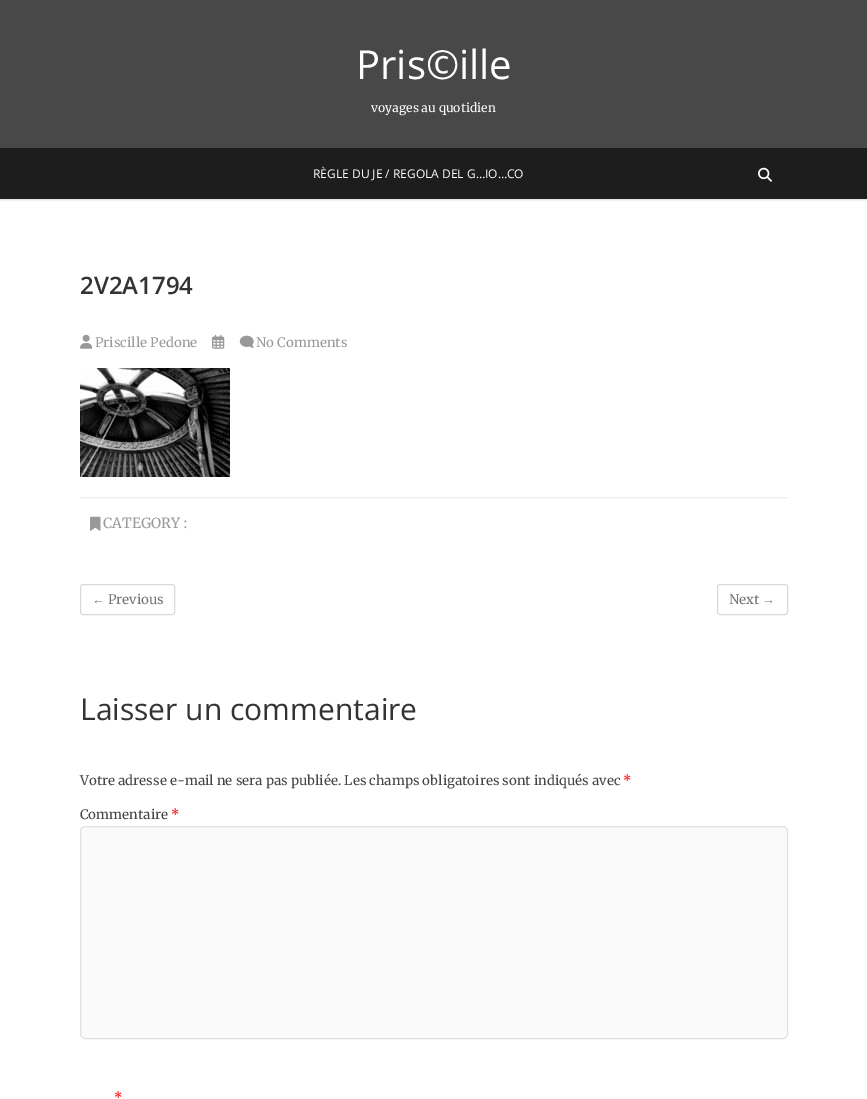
%!PS
<< /PageSize [867 1099] /PageUsesTransparency true >> setpagedevice
/rgb { dup -16 bitshift 255 div exch dup -8 bitshift 255 and 255 div exch 255 and 255 div setrgbcolor } def
/font { [ exch dup neg 0 0 3 -1 roll 0 0 ] selectfont } def
/text { moveto show } def
/alpha { dup .setfillconstantalpha .setstrokeconstantalpha } def
/roundrect { 5 dict begin { /r /h /w /y /x } { exch def } forall
  x r add y moveto x w add y 2 copy h add r arct x w add y h add x 1 index r arct
  x y h add x y r arct x y 2 copy exch w add exch r arct closepath end } def
/shadow { 12 dict begin { /a /b /q /h /w /y /x } { exch def } forall gsave /was 0 def
  9 -2 -9 { dup b mul 4 div /e exch def 1 sub .425 mul 2.718 exch exp 1 add a .99 .min exch div /now exch def
    1 1 now sub 1 was sub div sub alpha /was now def
    w h .min e 2 mul add 0 gt { x e sub y e sub w e 2 mul add h e 2 mul add
      q e add b .6 mul add w h .min 2 div e add .min 0 .max roundrect fill } if } for grestore end } def
/picture { 5 dict begin { /h /w /y /x /name } { exch def } forall
  gsave x y translate w h scale
  w h 8 [w 0 0 h 0 0] name (r) file false 3 colorimage grestore end } def
0 .pushpdf14devicefilter
0 1099 translate 1 -1 scale
4 setmiterlimit
/s1 { /OpenSans-Regular 40 font 16#FFFFFF rgb } def
/s2 { /Merriweather-Regular 12 font 16#FFFFFF rgb } def
/s3 { /OpenSans-Regular 12 font 16#FFFFFF rgb } def
/s4 { /OpenSans-SemiBold 24 font 16#333333 rgb } def
/s5 { /Merriweather-Regular 13 font 16#999999 rgb } def
/s6 { /Merriweather-Regular 14 font 16#999999 rgb } def
/s7 { /LiberationSans-Regular 13 font 16#747474 rgb } def
/s8 { /Merriweather-Regular 13 font 16#747474 rgb } def
/s9 { /OpenSans-Regular 30 font 16#333333 rgb } def
/s10 { /Merriweather-Regular 13 font 16#444444 rgb } def
/s11 { /Merriweather-Regular 13 font 16#FF0000 rgb } def
16#FFFFFF rgb
0 0 867 1099 rectfill
16#484848 rgb
0 0 867 148 rectfill
s1
(Pris©ille) 356 79 text
s2
(voyages au quotidien) 371 112 text
16#000000 rgb
0 149 867 51 0 1 0.15 shadow
16#1D1D1D rgb
0 148 867 51 rectfill
s3
(RÈGLE DU JE / REGOLA DEL G…IO…CO) 313 178 text
(pic1.raw) 758 167 14 15 picture
s4
(2V2A1794) 80 294 text
(pic2.raw) 80 334 13 15 picture
s5
(Priscille Pedone) 95 347 text
(pic3.raw) 212 334 13 15 picture
(pic4.raw) 239 335 15 13 picture
(No Comments) 256 347 text
(pic5.raw) 80 368 150 109 picture
16#DDDDDD rgb
[1 1] 0 setdash
80 497.5 moveto 788 497.5 lineto stroke
(pic6.raw) 90 516 11 15 picture
s6
(CATEGORY :) 103 528 text
16#D9D9D9 rgb
[] 0 setdash
80.5 584.5 94 30 2.5 roundrect stroke
s7
(←) 92 604 text
s8
(Previous) 108 604 text
16#D9D9D9 rgb
717.5 584.5 70 30 2.5 roundrect stroke
s8
(Next) 729 604 text
s7
(→) 762 604 text
s9
(Laisser un commentaire) 80 720 text
s10
(Votre adresse e-mail ne sera pas publiée. Les champs obligatoires sont indiqués avec) 80 785 text
s11
(*) 623 785 text
s10
(Commentaire) 80 819 text
s11
(*) 171 819 text
16#FAFAFA rgb
80.5 826.5 707 212 4.5 roundrect gsave fill grestore
16#E1E1E1 rgb
stroke
s11
(*) 114 1102 text
.poppdf14devicefilter showpage
